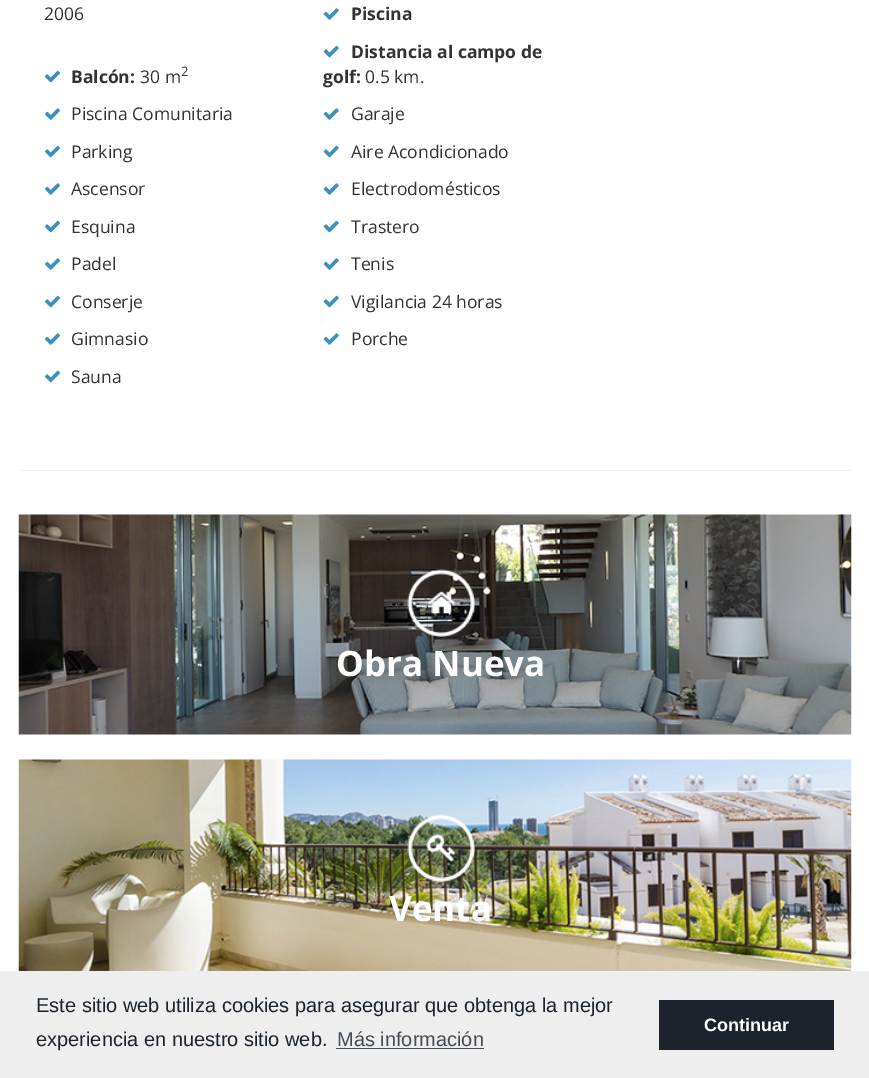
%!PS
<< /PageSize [869 1078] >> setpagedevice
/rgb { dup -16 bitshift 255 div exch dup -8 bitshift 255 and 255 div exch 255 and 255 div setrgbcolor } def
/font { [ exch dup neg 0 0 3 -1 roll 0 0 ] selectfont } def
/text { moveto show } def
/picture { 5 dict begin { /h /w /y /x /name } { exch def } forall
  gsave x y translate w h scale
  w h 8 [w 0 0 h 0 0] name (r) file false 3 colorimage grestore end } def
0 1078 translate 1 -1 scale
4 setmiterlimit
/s1 { /OpenSans-Regular 17.5 font 16#333333 rgb } def
/s2 { /OpenSans-Bold 17.5 font 16#333333 rgb } def
/s3 { /OpenSans-Regular 13 font 16#333333 rgb } def
/s4 { /OpenSans-Bold 35 font 16#FFFFFF rgb } def
/s5 { /LiberationSans-Regular 20 font 16#1C232C rgb } def
/s6 { /LiberationSans-Regular 20 font 16#464C53 rgb } def
/s7 { /LiberationSans-Bold 18 font 16#FFFFFF rgb } def
16#FFFFFF rgb
0 0 869 1078 rectfill
s1
(2006) 44 20 text
(pic1.raw) 323 8 16 12 picture
s2
(Piscina) 351 20 text
(pic2.raw) 45 70 15 13 picture
(Balcón:) 71 83 text
s1
(30 m) 140 83 text
s3
(2) 181 76 text
(pic3.raw) 323 45 16 13 picture
s2
(Distancia al campo de) 351 58 text
(golf:) 323 83 text
s1
(0.5 km.) 365 83 text
(pic4.raw) 45 108 15 12 picture
(Piscina Comunitaria) 71 120 text
(pic1.raw) 323 108 16 12 picture
(Garaje) 351 120 text
(pic2.raw) 45 145 15 13 picture
(Parking) 71 158 text
(pic3.raw) 323 145 16 13 picture
(Aire Acondicionado) 351 158 text
(pic4.raw) 45 183 15 12 picture
(Ascensor) 71 195 text
(pic1.raw) 323 183 16 12 picture
(Electrodomésticos) 351 195 text
(pic2.raw) 45 220 15 13 picture
(Esquina) 71 233 text
(pic3.raw) 323 220 16 13 picture
(Trastero) 351 233 text
(pic4.raw) 45 258 15 12 picture
(Padel) 71 270 text
(pic1.raw) 323 258 16 12 picture
(Tenis) 351 270 text
(pic2.raw) 45 295 15 13 picture
(Conserje) 71 308 text
(pic3.raw) 323 295 16 13 picture
(Vigilancia 24 horas) 351 308 text
(pic4.raw) 45 333 15 12 picture
(Gimnasio) 71 345 text
(pic1.raw) 323 333 16 12 picture
(Porche) 351 345 text
(pic2.raw) 45 370 15 13 picture
(Sauna) 71 383 text
16#EEEEEE rgb
19 470 832 1 rectfill
(pic5.raw) 18 514 834 221 picture
(pic6.raw) 407 569 68 68 picture
s4
(Obra Nueva) 336 676 text
(pic7.raw) 18 759 834 212 picture
(pic8.raw) 407 814 68 68 picture
(Venta) 389 921 text
16#EEEEEE rgb
0 971 869 107 rectfill
s5
(Este sitio web utiliza cookies para asegurar que obtenga la mejor) 36 1012 text
(experiencia en nuestro sitio web.) 36 1046 text
s6
(Más información) 337 1046 text
336 1048 148 1 rectfill
16#1C232C rgb
659 1000 175 50 rectfill
s7
(Continuar) 704 1031 text
showpage
